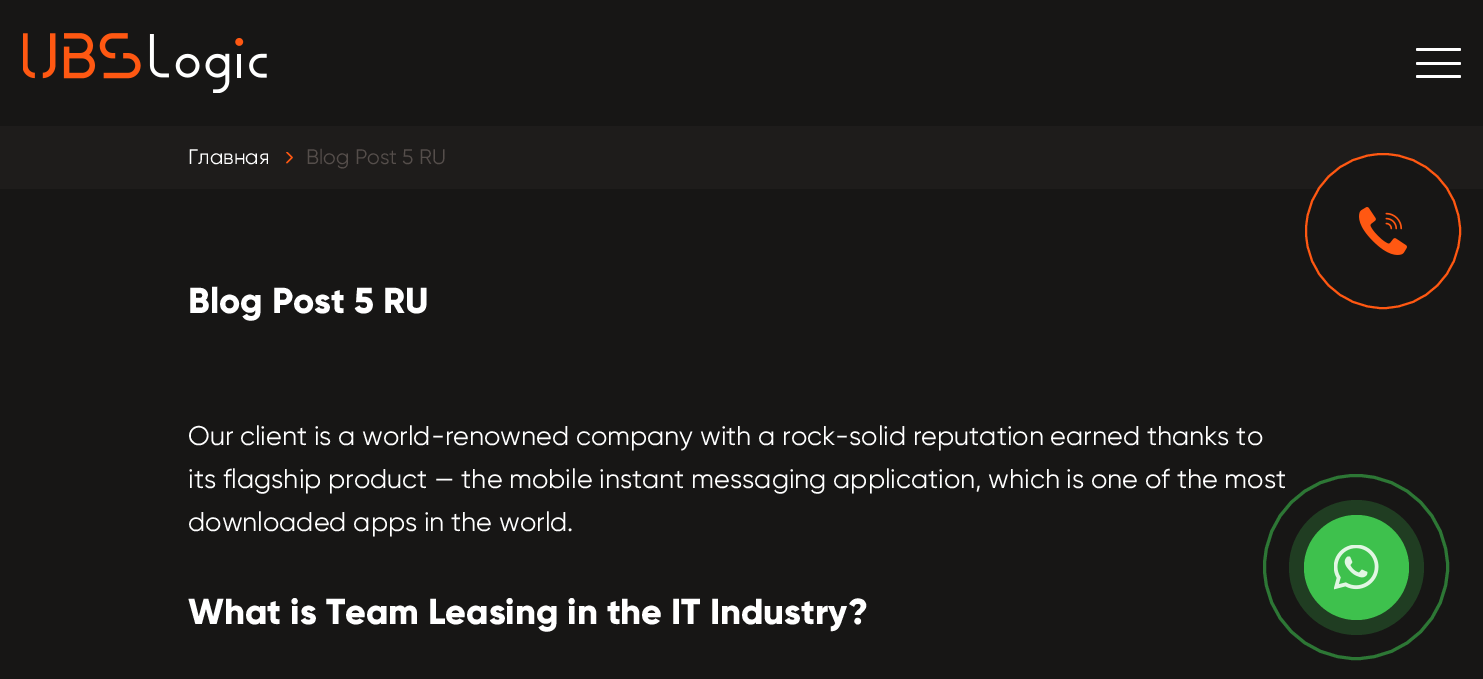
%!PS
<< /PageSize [1483 679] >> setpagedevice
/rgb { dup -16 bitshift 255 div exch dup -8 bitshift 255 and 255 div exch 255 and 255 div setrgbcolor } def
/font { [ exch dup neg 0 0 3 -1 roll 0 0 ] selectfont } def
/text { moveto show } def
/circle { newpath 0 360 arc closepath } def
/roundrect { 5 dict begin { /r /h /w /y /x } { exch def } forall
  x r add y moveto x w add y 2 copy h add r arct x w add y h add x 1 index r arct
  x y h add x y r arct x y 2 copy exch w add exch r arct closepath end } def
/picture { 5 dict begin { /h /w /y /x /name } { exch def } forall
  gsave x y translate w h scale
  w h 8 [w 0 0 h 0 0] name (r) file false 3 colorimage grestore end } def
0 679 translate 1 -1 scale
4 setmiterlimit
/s1 { /Gilroy-Regular 21 font 16#FFFFFF rgb } def
/s2 { /Gilroy-Regular 21 font 16#554E4B rgb } def
/s3 { /Gilroy-ExtraBold 36 font 16#FFFFFF rgb } def
/s4 { /Gilroy-Regular 27 font 16#FFFFFF rgb } def
16#171615 rgb
0 0 1483 679 rectfill
(pic1.raw) 23 33 244 60 picture
16#FFFFFF rgb
1416 62 45 3 1.5 roundrect fill
1416 48 45 3 1.5 roundrect fill
1416 75 45 3 1.5 roundrect fill
16#1E1C1B rgb
0 126 1483 63 rectfill
s1
(Главная) 188 164 text
(pic2.raw) 286 152 7 12 picture
s2
(Blog Post 5 RU) 306 164 text
s3
(Blog Post 5 RU) 188 313 text
s4
(Our client is a world-renowned company with a rock-solid reputation earned thanks to) 188 445 text
(its flagship product — the mobile instant messaging application, which is one of the most) 188 488 text
(downloaded apps in the world.) 188 531 text
s3
(What is Team Leasing in the IT Industry?) 188 624 text
16#171615 rgb
1383 231 77 circle gsave fill grestore
16#FF5812 rgb
2 setlinewidth
stroke
(pic3.raw) 1359 207 48 48 picture
16#2D7735 rgb
3 setlinewidth
1356 567 91.5 circle stroke
16#203D22 rgb
1356.5 567.5 67.5 circle fill
16#3EC14D rgb
1356.5 567.5 52.5 circle fill
(pic4.raw) 1334 545 45 45 picture
showpage
